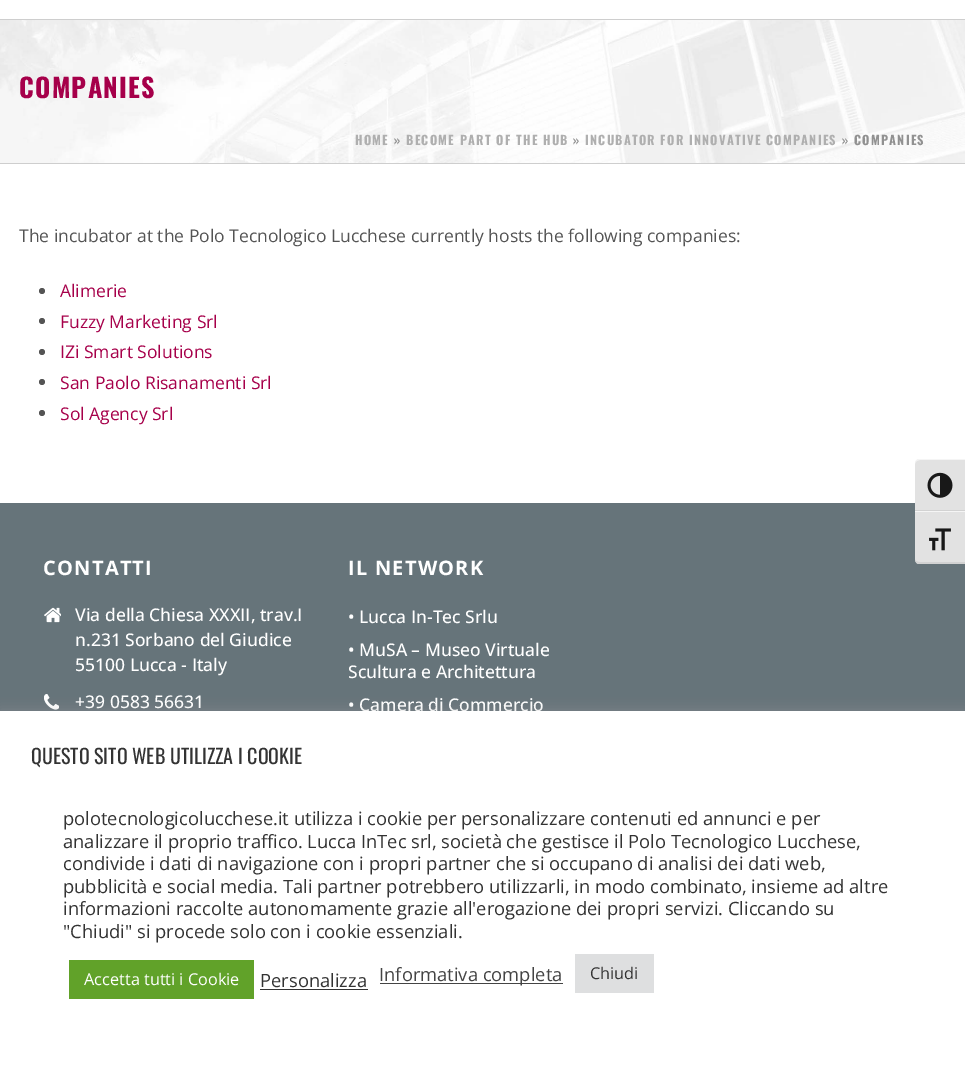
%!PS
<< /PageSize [965 1067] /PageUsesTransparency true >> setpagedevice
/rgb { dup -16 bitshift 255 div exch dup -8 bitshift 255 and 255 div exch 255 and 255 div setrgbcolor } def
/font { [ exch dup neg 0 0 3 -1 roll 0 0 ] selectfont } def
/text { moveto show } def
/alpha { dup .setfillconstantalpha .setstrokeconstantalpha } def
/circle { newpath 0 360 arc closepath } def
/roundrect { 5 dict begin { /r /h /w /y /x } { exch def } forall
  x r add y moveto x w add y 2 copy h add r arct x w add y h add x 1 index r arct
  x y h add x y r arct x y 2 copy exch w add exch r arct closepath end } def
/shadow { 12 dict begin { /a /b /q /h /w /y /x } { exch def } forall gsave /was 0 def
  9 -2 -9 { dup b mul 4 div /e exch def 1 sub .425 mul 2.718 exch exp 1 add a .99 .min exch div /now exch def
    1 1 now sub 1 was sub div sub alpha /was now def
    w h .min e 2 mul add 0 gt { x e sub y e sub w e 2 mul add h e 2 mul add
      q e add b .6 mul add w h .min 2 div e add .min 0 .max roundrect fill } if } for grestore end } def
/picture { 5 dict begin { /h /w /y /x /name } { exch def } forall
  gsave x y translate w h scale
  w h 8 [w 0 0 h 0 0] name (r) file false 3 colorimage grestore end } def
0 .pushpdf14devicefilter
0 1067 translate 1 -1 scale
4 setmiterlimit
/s1 { /OpenSans-Regular 17.5 font 16#545454 rgb } def
/s2 { /OpenSans-Regular 17.5 font 16#A6004A rgb } def
/s3 { /OpenSans-Medium 17.5 font 16#FFFFFF rgb } def
/s4 { /Oswald-Regular 20 font 16#333333 rgb } def
/s5 { /OpenSans-Regular 18.35 font 16#333333 rgb } def
/s6 { /OpenSans-Regular 16.25 font 16#FFFFFF rgb } def
/s7 { /OpenSans-Regular 18.35 font 16#444444 rgb } def
/s8 { /OpenSans-Regular 16.25 font 16#333333 rgb } def
16#66747A rgb
0 0 965 1067 rectfill
(pic1.raw) 0 20 965 143 picture
16#CECECE rgb
0 163 965 1 rectfill
0 19 965 1 rectfill
16#FFFFFF rgb
0 0 965 19 rectfill
/Oswald-Bold 26.25 font
16#A6004A rgb
19 98 moveto 1.25 0 (COMPANIES) ashow
/Oswald-Bold 12.5 font
16#AFAFAF rgb
355 145 moveto 1.25 0 (HOME) ashow
16#919191 rgb
394 145 moveto 1.25 0 (») ashow
16#AFAFAF rgb
406 145 moveto 1.25 0 (BECOME PART OF THE HUB) ashow
16#919191 rgb
573 145 moveto 1.25 0 (») ashow
16#AFAFAF rgb
585 145 moveto 1.25 0 (INCUBATOR FOR INNOVATIVE COMPANIES) ashow
16#919191 rgb
842 145 moveto 1.25 0 (» COMPANIES) ashow
16#FFFFFF rgb
0 164 965 339 rectfill
s1
(The incubator at the Polo Tecnologico Lucchese currently hosts the following companies:) 19 242 text
42 291 3 circle fill
s2
(Alimerie) 60 297 text
16#545454 rgb
42 321 3 circle fill
s2
(Fuzzy Marketing Srl) 60 328 text
16#545454 rgb
42 352 3 circle fill
s2
(IZi Smart Solutions) 60 358 text
16#545454 rgb
42 382 3 circle fill
s2
(San Paolo Risanamenti Srl) 60 389 text
16#545454 rgb
42 413 3 circle fill
s2
(Sol Agency Srl) 60 420 text
/OpenSans-Bold 20 font
16#FFFFFF rgb
43 575 moveto 1.25 0 (CONTATTI) ashow
(pic2.raw) 44 607 17 16 picture
s3
(Via della Chiesa XXXII, trav.I) 75 621 text
(n.231 Sorbano del Giudice) 75 646 text
(55100 Lucca - Italy) 75 671 text
(pic3.raw) 44 694 15 16 picture
(+39 0583 56631) 75 708 text
/OpenSans-Bold 20 font
348 575 moveto 1.25 0 (IL NETWORK) ashow
s3
(• Lucca In-Tec Srlu) 348 623 text
(• MuSA – Museo Virtuale) 348 656 text
(Scultura e Architettura) 348 678 text
(• Camera di Commercio) 348 711 text
16#E2E2E2 rgb
920 459 moveto 965 459 lineto 965 511 lineto 915 511 lineto 915 464 lineto 915 461 917 459 920 459 curveto closepath fill
16#F5F5F5 rgb
920 459 moveto 965 459 lineto 965 460 lineto 920 460 lineto 917 460 915 462 915 464 curveto 915 461 917 459 920 459 curveto closepath fill
16#D2D2D2 rgb
915 510 50 1 rectfill
(pic4.raw) 927 472 26 26 picture
16#E2E2E2 rgb
915 511 moveto 965 511 lineto 965 564 lineto 920 564 lineto 917 564 915 562 915 559 curveto closepath fill
16#F5F5F5 rgb
915 511 50 1 rectfill
16#D2D2D2 rgb
965 564 moveto 918 564 lineto 916 563 915 561 915 559 curveto 915 561 917 562 920 562 curveto 965 562 lineto closepath fill
(pic5.raw) 929 528 22 23 picture
16#ACABAB rgb
0 710 965 356 0 6 0.3 shadow
16#FFFFFF rgb
0 711 965 356 rectfill
s4
(QUESTO SITO WEB UTILIZZA I COOKIE) 31 764 text
s5
(polotecnologicolucchese.it utilizza i cookie per personalizzare contenuti ed annunci e per) 63 825 text
(analizzare il proprio traffico. Lucca InTec srl, società che gestisce il Polo Tecnologico Lucchese,) 63 848 text
(condivide i dati di navigazione con i propri partner che si occupano di analisi dei dati web,) 63 870 text
(pubblicità e social media. Tali partner potrebbero utilizzarli, in modo combinato, insieme ad altre) 63 893 text
(informazioni raccolte autonomamente grazie all'erogazione dei propri servizi. Cliccando su) 63 915 text
("Chiudi" si procede solo con i cookie essenziali.) 63 938 text
16#61A229 rgb
69 960 185 39 rectfill
s6
(Accetta tutti i Cookie) 84 985 text
s5
(Personalizza) 260 987 text
260 989 108 1 rectfill
16#444444 rgb
380 983 183 1 rectfill
(Informativa completa) 379 981 text
16#DEDFE0 rgb
575 954 79 39 rectfill
s8
(Chiudi) 590 979 text
.poppdf14devicefilter showpage
